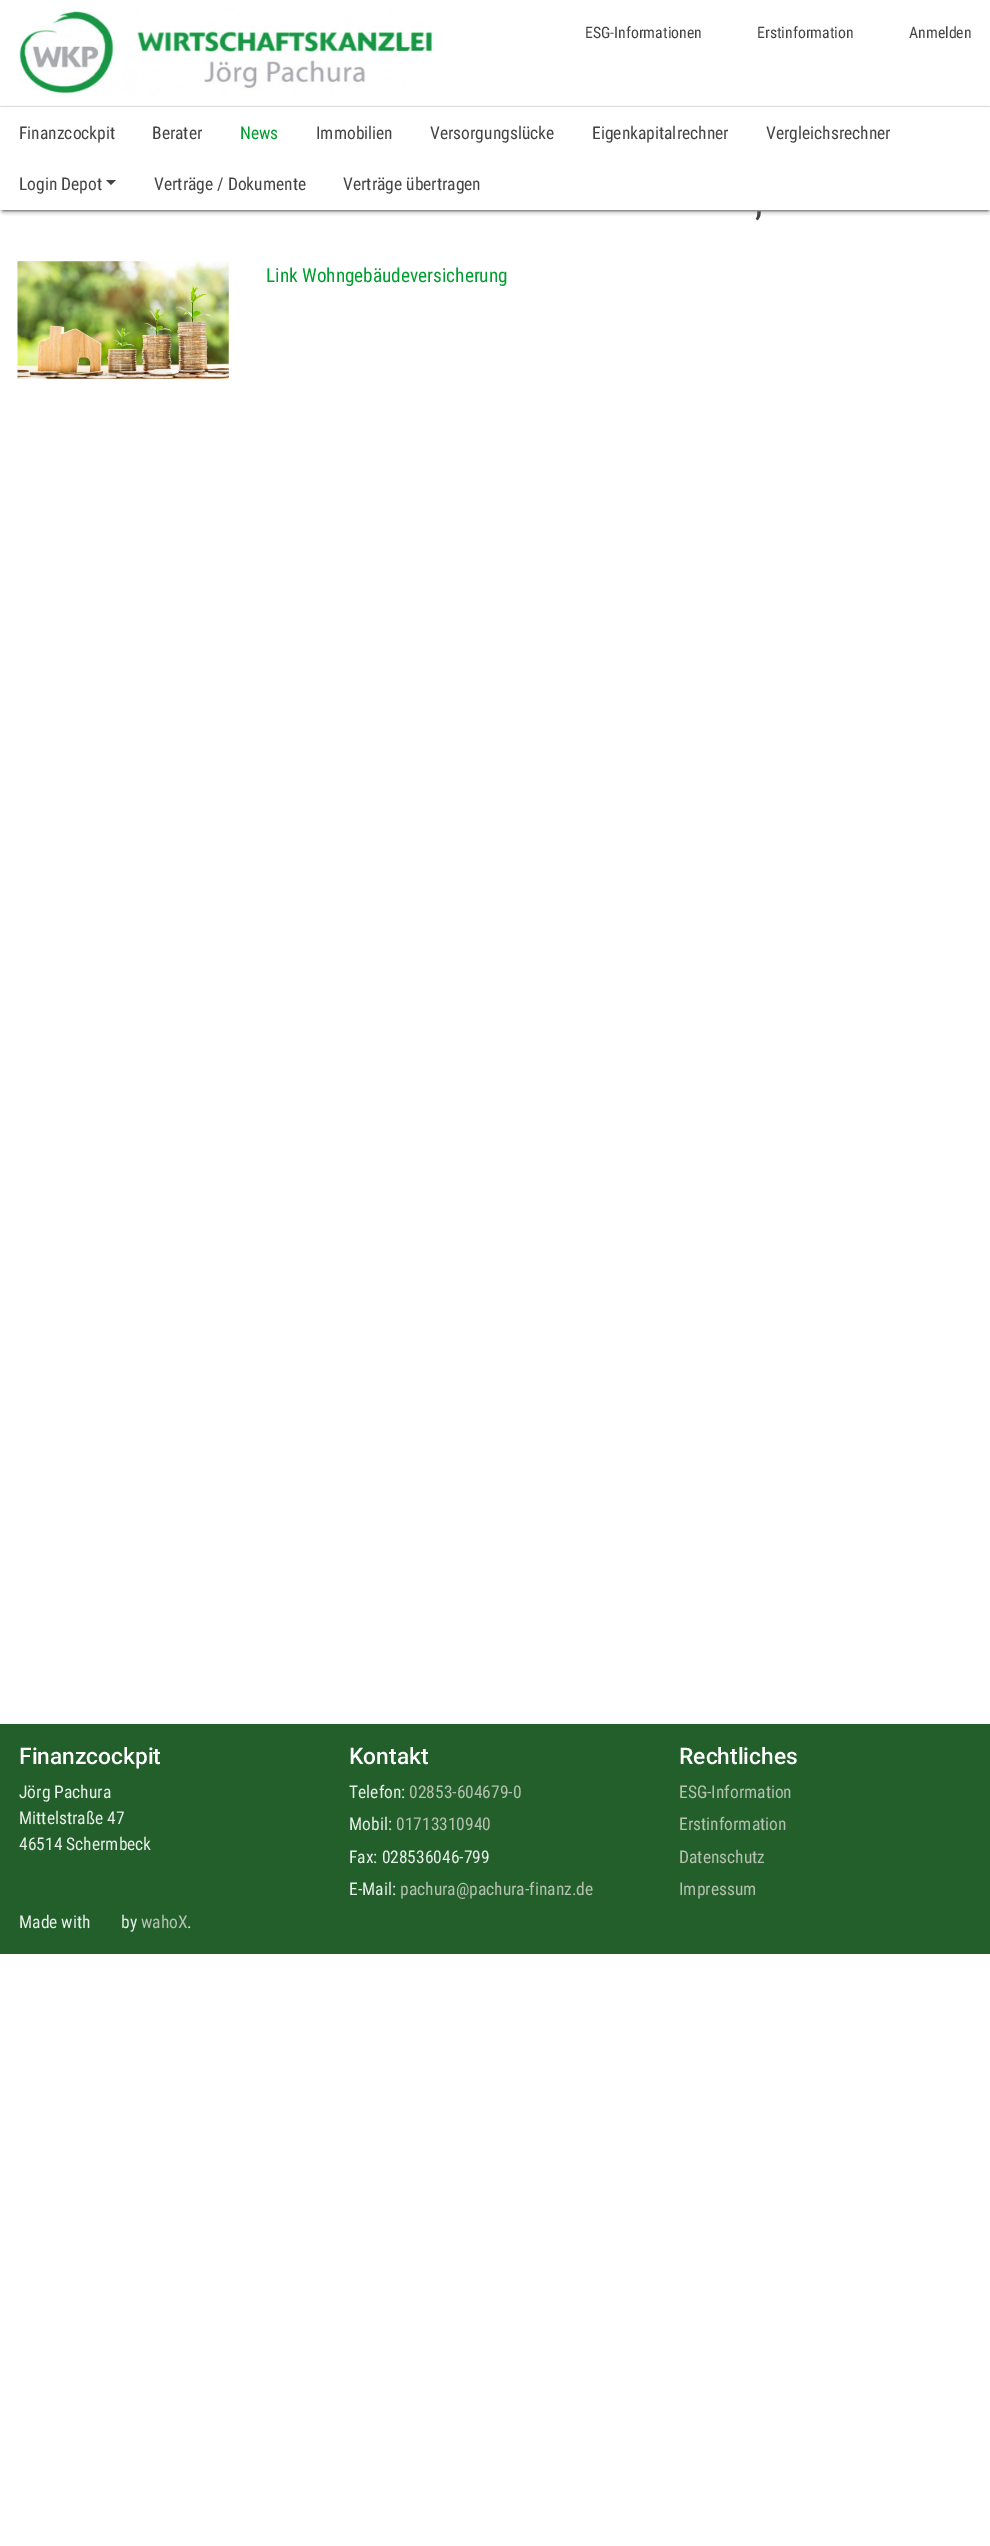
%!PS
<< /PageSize [990 2546] /PageUsesTransparency true >> setpagedevice
/rgb { dup -16 bitshift 255 div exch dup -8 bitshift 255 and 255 div exch 255 and 255 div setrgbcolor } def
/font { [ exch dup neg 0 0 3 -1 roll 0 0 ] selectfont } def
/text { moveto show } def
/alpha { dup .setfillconstantalpha .setstrokeconstantalpha } def
/roundrect { 5 dict begin { /r /h /w /y /x } { exch def } forall
  x r add y moveto x w add y 2 copy h add r arct x w add y h add x 1 index r arct
  x y h add x y r arct x y 2 copy exch w add exch r arct closepath end } def
/shadow { 12 dict begin { /a /b /q /h /w /y /x } { exch def } forall gsave /was 0 def
  9 -2 -9 { dup b mul 4 div /e exch def 1 sub .425 mul 2.718 exch exp 1 add a .99 .min exch div /now exch def
    1 1 now sub 1 was sub div sub alpha /was now def
    w h .min e 2 mul add 0 gt { x e sub y e sub w e 2 mul add h e 2 mul add
      q e add b .6 mul add w h .min 2 div e add .min 0 .max roundrect fill } if } for grestore end } def
/picture { 5 dict begin { /h /w /y /x /name } { exch def } forall
  gsave x y translate w h scale
  w h 8 [w 0 0 h 0 0] name (r) file false 3 colorimage grestore end } def
0 .pushpdf14devicefilter
0 2546 translate 1 -1 scale
4 setmiterlimit
/s1 { /RobotoCondensed-Regular 15.75 font 16#444444 rgb } def
/s2 { /RobotoCondensed-Regular 17.5 font 16#444444 rgb } def
/s3 { /RobotoCondensed-Regular 17.5 font 16#009E30 rgb } def
/s4 { /Roboto-Medium 33 font 16#444444 rgb } def
/s5 { /RobotoCondensed-Regular 19.25 font 16#009E30 rgb } def
/s6 { /Roboto-Medium 22.75 font 16#FFFFFF rgb } def
/s7 { /RobotoCondensed-Regular 17.5 font 16#E9EFEA rgb } def
/s8 { /RobotoCondensed-Regular 17.5 font 16#B6C1B1 rgb } def
16#FFFFFF rgb
0 0 990 2546 rectfill
(pic1.raw) 19 6 417 91 picture
s1
(ESG-Informationen) 585 38 text
(Erstinformation) 757 38 text
(Anmelden) 909 38 text
16#000000 rgb
3 111 985 99 0 2.5 1 shadow
16#FFFFFF rgb
0 107 990 103 rectfill
16#DDDDDD rgb
0 106 990 1 rectfill
s2
(Finanzcockpit) 19 139 text
(Berater) 152 139 text
s3
(News) 240 139 text
s2
(Immobilien) 316 139 text
(Versorgungslücke) 430 139 text
(Eigenkapitalrechner) 592 139 text
(Vergleichsrechner) 766 139 text
(Login Depot) 19 190 text
106 180 moveto 116 180 lineto 111 185 lineto closepath fill
(Verträge / Dokumente) 154 190 text
(Verträge übertragen) 343 190 text
s4
(,) 755 215 text
(pic2.raw) 17 261 212 118 picture
s5
(Link Wohngebäudeversicherung) 266 282 text
16#225F2B rgb
0 1724 990 230 rectfill
s6
(Finanzcockpit) 19 1764 text
s7
(Jörg Pachura) 19 1798 text
(Mittelstraße 47) 19 1824 text
(46514 Schermbeck) 19 1850 text
s6
(Kontakt) 349 1764 text
s7
(Telefon:) 349 1798 text
s8
(02853-604679-0) 409 1798 text
s7
(Mobil:) 349 1830 text
s8
(01713310940) 396 1830 text
s7
(Fax: 028536046-799) 349 1863 text
(E-Mail:) 349 1895 text
s8
(pachura@pachura-finanz.de) 400 1895 text
s6
(Rechtliches) 679 1764 text
s8
(ESG-Information) 679 1798 text
(Erstinformation) 679 1830 text
(Datenschutz) 679 1863 text
(Impressum) 679 1895 text
s7
(Made with) 19 1928 text
(by) 121 1928 text
s8
(wahoX) 141 1928 text
s7
(.) 187 1928 text
.poppdf14devicefilter showpage
